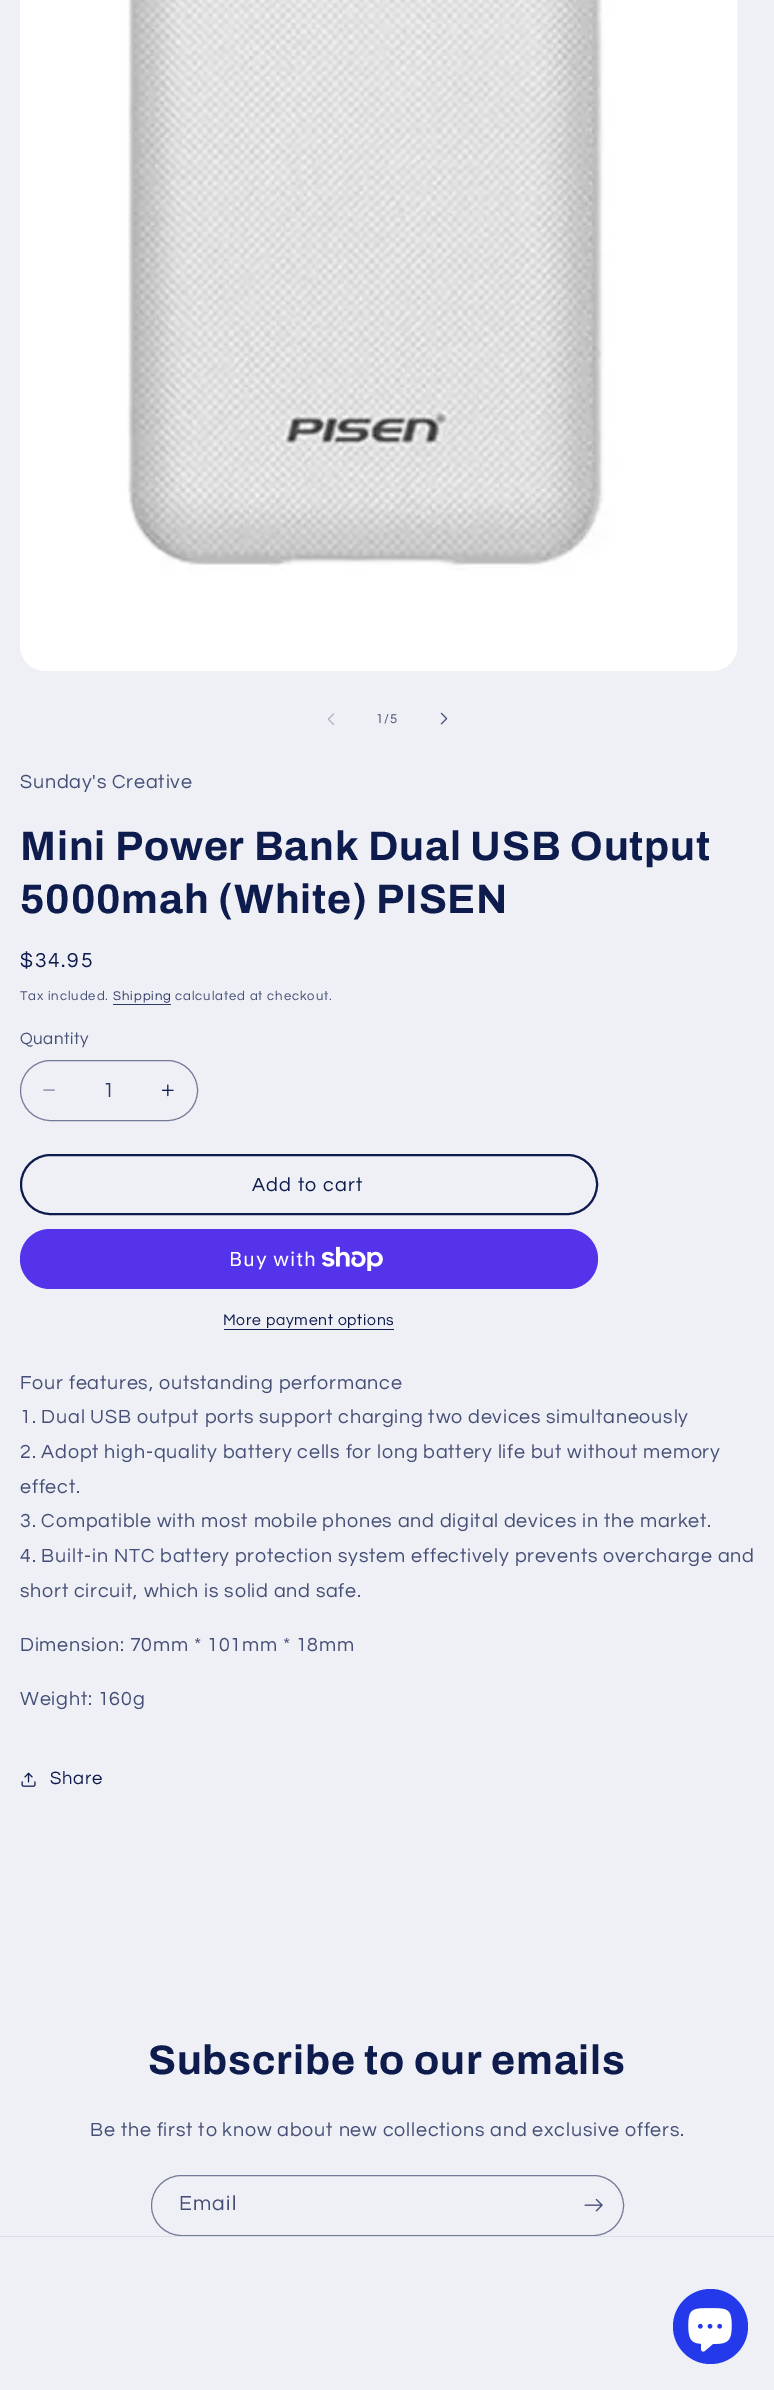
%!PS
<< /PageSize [774 2390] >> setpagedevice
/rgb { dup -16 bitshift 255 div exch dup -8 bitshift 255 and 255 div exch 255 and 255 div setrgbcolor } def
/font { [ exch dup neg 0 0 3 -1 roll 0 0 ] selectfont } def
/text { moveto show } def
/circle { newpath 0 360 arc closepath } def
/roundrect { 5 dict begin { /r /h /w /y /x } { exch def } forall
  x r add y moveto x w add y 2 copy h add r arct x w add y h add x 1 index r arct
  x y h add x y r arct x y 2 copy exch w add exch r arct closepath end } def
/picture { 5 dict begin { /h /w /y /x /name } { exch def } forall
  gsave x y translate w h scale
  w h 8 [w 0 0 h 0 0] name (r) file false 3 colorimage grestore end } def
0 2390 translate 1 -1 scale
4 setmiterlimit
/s1 { /Questrial-Regular 21 font 16#303B66 rgb } def
16#EFF0F5 rgb
0 0 774 2390 rectfill
(pic1.raw) 20 0 718 671 picture
(pic2.raw) 327 713 8 12 picture
/Questrial-Regular 13.1 font
16#465077 rgb
376 723 moveto 0.9 0 (1/5) ashow
(pic3.raw) 440 712 8 13 picture
/Questrial-Regular 19.7 font
20 788 moveto 0.8 0 (Sunday's Creative) ashow
/Archivo-Bold 41.25 font
16#0E1B4D rgb
20 860 moveto 0.8 0 (Mini Power Bank Dual USB Output) ashow
20 913 moveto 0.8 0 (5000mah \(White\) PISEN) ashow
/Questrial-Regular 21 font
20 967 moveto 1.75 0 ($34.95) ashow
/Questrial-Regular 13.1 font
16#465077 rgb
20 1000 moveto 0.9 0 (Tax included.) ashow
16#303B66 rgb
113 1000 moveto 0.9 0 (Shipping) ashow
113 1004 58 1 rectfill
16#465077 rgb
175 1000 moveto 0.9 0 (calculated at checkout.) ashow
/Questrial-Regular 17 font
20 1044 moveto 0.5 0 (Quantity) ashow
(pic4.raw) 43 1089 12 2 picture
(pic5.raw) 161 1084 13 13 picture
16#737B99 rgb
20.5 1060.5 177 60 30 roundrect stroke
s1
(1) 103 1097 text
16#0E1B4D rgb
2 setlinewidth
21 1155 576 59 29.5 roundrect stroke
/Questrial-Regular 19.7 font
252 1191 moveto 1.25 0 (Add to cart) ashow
16#5433EB rgb
20 1229 578 60 30 roundrect fill
/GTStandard-Regular 20 font
16#FFFFFF rgb
229 1266 moveto 0.8 0 (Buy with) ashow
(pic6.raw) 321 1246 62 25 picture
/Questrial-Regular 15.75 font
16#0E1B4D rgb
223 1325 moveto 0.7 0 (More payment options) ashow
224 1329 170 1 rectfill
/Questrial-Regular 19.7 font
16#465077 rgb
20 1389 moveto 0.8 0 (Four features, outstanding performance) ashow
20 1423 moveto 0.8 0 (1. Dual USB output ports support charging two devices simultaneously) ashow
20 1458 moveto 0.8 0 (2. Adopt high-quality battery cells for long battery life but without memory) ashow
20 1493 moveto 0.8 0 (effect.) ashow
20 1527 moveto 0.8 0 (3. Compatible with most mobile phones and digital devices in the market.) ashow
20 1562 moveto 0.8 0 (4. Built-in NTC battery protection system effectively prevents overcharge and) ashow
20 1597 moveto 0.8 0 (short circuit, which is solid and safe.) ashow
20 1651 moveto 0.8 0 (Dimension: 70mm * 101mm * 18mm) ashow
20 1705 moveto 0.8 0 (Weight: 160g) ashow
(pic7.raw) 21 1772 15 15 picture
/Questrial-Regular 18.5 font
16#0E1B4D rgb
50 1784 moveto 0.8 0 (Share) ashow
/Archivo-Bold 41.25 font
148 2074 moveto 0.8 0 (Subscribe to our emails) ashow
/Questrial-Regular 19.7 font
16#465077 rgb
90 2136 moveto 0.8 0 (Be the first to know about new collections and exclusive offers.) ashow
16#737B99 rgb
1 setlinewidth
151.5 2175.5 472 60 30 roundrect stroke
/Questrial-Regular 21 font
16#465077 rgb
179 2210 moveto 1.25 0 (Email) ashow
(pic8.raw) 584 2198 19 14 picture
16#DDDFE8 rgb
0 2236 774 1 rectfill
16#2439EA rgb
710.5 2326.5 37.5 circle fill
(pic9.raw) 688 2308 44 44 picture
showpage
